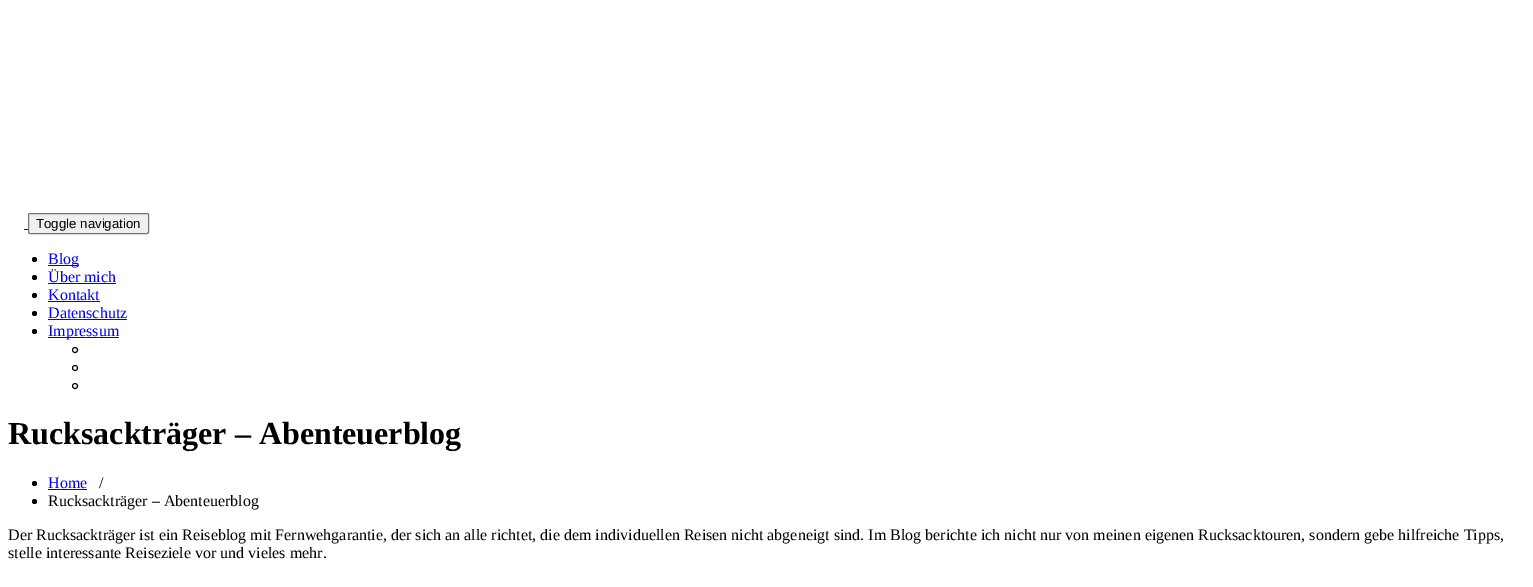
%!PS
<< /PageSize [1533 587] >> setpagedevice
/rgb { dup -16 bitshift 255 div exch dup -8 bitshift 255 and 255 div exch 255 and 255 div setrgbcolor } def
/font { [ exch dup neg 0 0 3 -1 roll 0 0 ] selectfont } def
/text { moveto show } def
/circle { newpath 0 360 arc closepath } def
/roundrect { 5 dict begin { /r /h /w /y /x } { exch def } forall
  x r add y moveto x w add y 2 copy h add r arct x w add y h add x 1 index r arct
  x y h add x y r arct x y 2 copy exch w add exch r arct closepath end } def
0 587 translate 1 -1 scale
4 setmiterlimit
/s1 { /LiberationSans-Regular 13.25 font 16#000000 rgb } def
/s2 { /LiberationSerif-Regular 16 font 16#0000EE rgb } def
/s3 { /LiberationSerif-Bold 32 font 16#000000 rgb } def
/s4 { /LiberationSerif-Regular 16 font 16#000000 rgb } def
16#FFFFFF rgb
0 0 1533 587 rectfill
16#0000EE rgb
24 229 4 1 rectfill
16#EFEFEF rgb
28.5 213.5 120 20 1.5 roundrect gsave fill grestore
16#767676 rgb
stroke
s1
(Toggle navigation) 36 228 text
34.5 259.5 2.5 circle fill
16#0000EE rgb
48 265 31 1 rectfill
s2
(Blog) 48 264 text
16#000000 rgb
34.5 277.5 2.5 circle fill
s2
(Über mich) 48 282 text
48 283 68 1 rectfill
16#000000 rgb
34.5 295.5 2.5 circle fill
s2
(Kontakt) 48 300 text
48 301 52 1 rectfill
16#000000 rgb
34.5 313.5 2.5 circle fill
s2
(Datenschutz) 48 318 text
48 319 79 1 rectfill
16#000000 rgb
34.5 331.5 2.5 circle fill
16#0000EE rgb
48 337 71 1 rectfill
(Impressum) 48 336 text
16#000000 rgb
75 350 2.5 circle stroke
75 368 2.5 circle stroke
75 386 2.5 circle stroke
s3
(Rucksackträger – Abenteuerblog) 8 444 text
34.5 483.5 2.5 circle fill
s2
(Home) 48 488 text
48 489 39 1 rectfill
s4
(/) 99 488 text
34.5 501.5 2.5 circle fill
(Rucksackträger – Abenteuerblog) 48 506 text
(Der Rucksackträger ist ein Reiseblog mit Fernwehgarantie, der sich an alle richtet, die dem individuellen Reisen nicht abgeneigt sind. Im Blog berichte ich nicht nur von meinen eigenen Rucksacktouren, sondern gebe hilfreiche Tipps,) 8 540 text
(stelle interessante Reiseziele vor und vieles mehr.) 8 558 text
showpage
